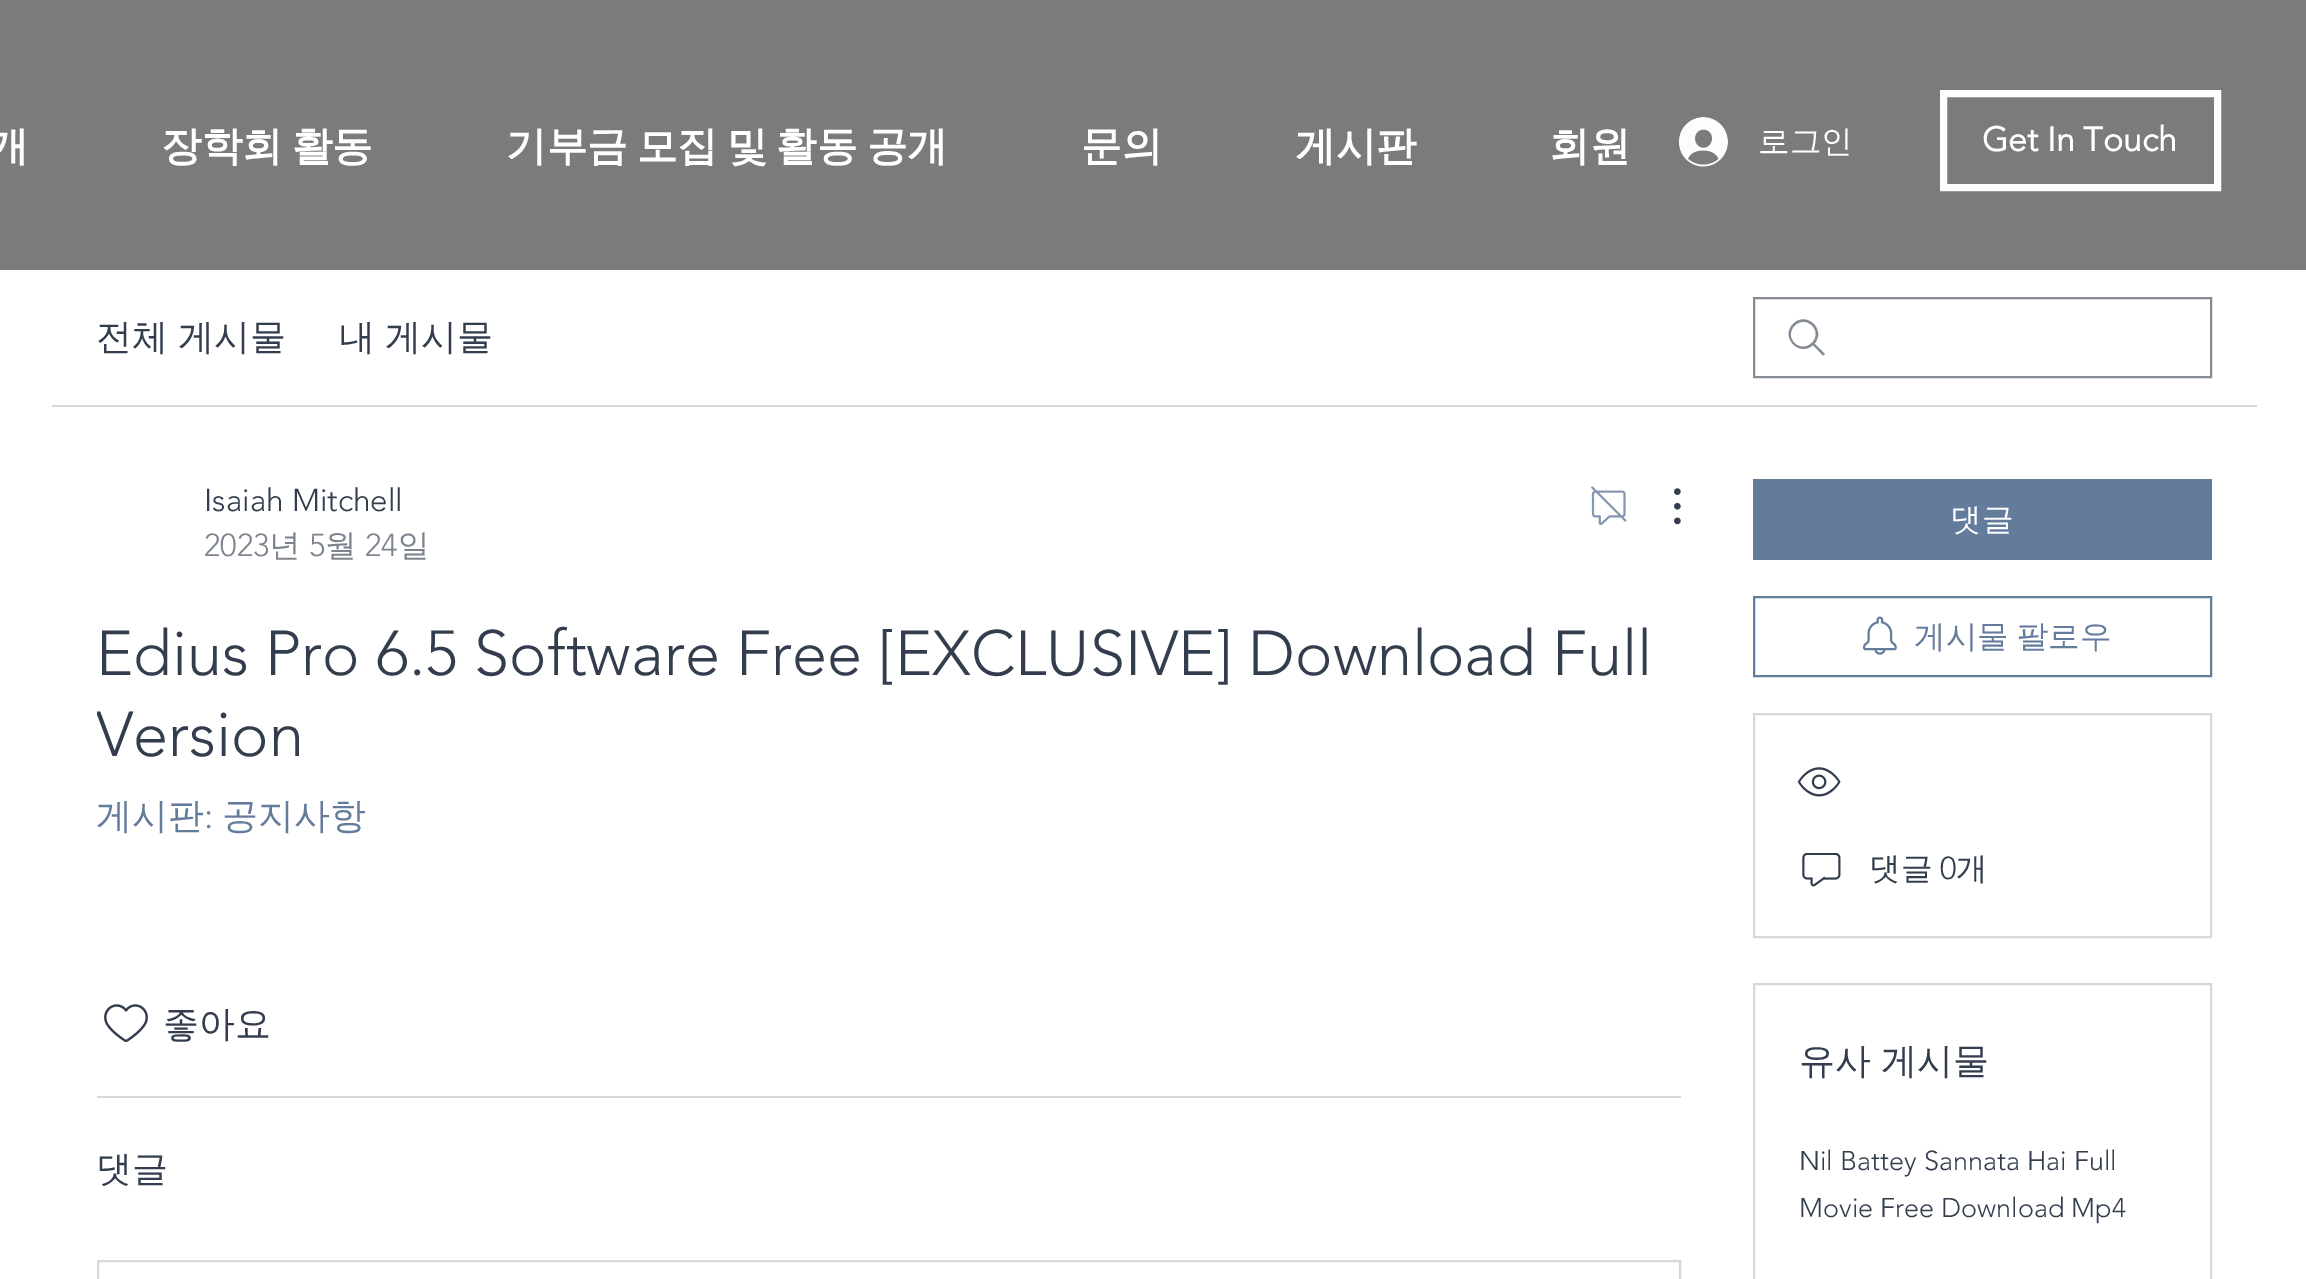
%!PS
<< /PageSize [2306 1279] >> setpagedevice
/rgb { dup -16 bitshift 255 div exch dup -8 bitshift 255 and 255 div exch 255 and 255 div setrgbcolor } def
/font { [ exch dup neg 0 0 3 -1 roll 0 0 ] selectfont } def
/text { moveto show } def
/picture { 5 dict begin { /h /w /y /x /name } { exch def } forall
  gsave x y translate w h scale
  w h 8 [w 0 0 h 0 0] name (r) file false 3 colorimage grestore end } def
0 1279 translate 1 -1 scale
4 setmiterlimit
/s1 { /WenQuanYiZenHei-Bold 40.5 font 16#FFFFFF rgb } def
/s2 { /WenQuanYiZenHei-Medium 31.5 font 16#FFFFFF rgb } def
/s3 { /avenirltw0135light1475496-Bold 33.75 font 16#FFFFFF rgb } def
/s4 { /avenirltw0135light1475496-Light 31.5 font 16#333D4E rgb } def
/s5 { /avenirltw0135light1475496-Light 31.5 font 16#7C838E rgb } def
/s6 { /WenQuanYiZenHei-Medium 31.5 font 16#7C838E rgb } def
/s7 { /avenirltw0135light1475496-Light 63 font 16#333D4E rgb } def
/s8 { /WenQuanYiZenHei-Medium 36 font 16#647C9C rgb } def
/s9 { /avenirltw0135light1475496-Light 36 font 16#647C9C rgb } def
/s10 { /WenQuanYiZenHei-Medium 36 font 16#333D4E rgb } def
/s11 { /WenQuanYiZenHei-Medium 31.5 font 16#333D4E rgb } def
/s12 { /avenirltw0135light1475496-Light 27 font 16#333D4E rgb } def
16#FFFFFF rgb
0 0 2306 1279 rectfill
16#7B7B7B rgb
0 0 2306 270 rectfill
/WenQuanYiZenHei-Bold 40.5 font
16#FFFFFF rgb
-12 160 moveto -3 0 32 (개) widthshow
161 160 moveto -3 0 32 (장학회 활동) widthshow
506 160 moveto -3 0 32 (기부금 모집 및 활동 공개) widthshow
(문의) 1081 160 text
(게시판) 1295 160 text
(회원) 1549 160 text
(pic1.raw) 1679 117 49 50 picture
s2
(로그인) 1758 152 text
16#FDFDFD rgb
7 setlinewidth
1943.5 93.5 274 94 rectstroke
s3
(Get In Touch) 1982 151 text
16#D6D8DC rgb
52 405 2205 2 rectfill
/WenQuanYiZenHei-Medium 36 font
16#333D4E rgb
96 349 moveto -1 0 32 (전체 게시물) widthshow
339 349 moveto -1 0 32 (내 게시물) widthshow
16#858B95 rgb
1794.5 343 moveto 1783 331.5 1800.5 314 1812 325.5 curveto 1823.5 337 1806 354.5 1794.5 343 curveto closepath 1825 354 moveto 1814.5 343.5 lineto 1826.5 329.5 1806 310.5 1793 324 curveto 1780 337 1799 357.5 1813 345 curveto 1823 355.5 lineto closepath eofill
2 setlinewidth
1754 298 457 79 rectstroke
s4
(Isaiah Mitchell) 204 511 text
s5
(2023) 204 556 text
s6
(년) 269 556 text
s5
(5) 309 556 text
s6
(월) 325 556 text
s5
(24) 365 556 text
s6
(일) 398 556 text
(pic2.raw) 1591 486 36 39 picture
(pic3.raw) 1674 488 7 37 picture
s7
(Edius Pro 6.5 Software Free [EXCLUSIVE] Download Full) 96 675 text
gsave
97 614 1584 162 rectclip
(Version) 96 756 text
grestore
s8
(게시판) 96 828 text
s9
(:) 204 828 text
s8
(공지사항) 222 828 text
(pic4.raw) 104 1004 44 38 picture
s10
(좋아요) 163 1036 text
16#D6D8DC rgb
97 1096 1584 2 rectfill
s10
(댓글) 96 1181 text
16#D6D8DC rgb
98 1261 1582 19 rectstroke
16#647C9C rgb
1753 479 459 81 rectfill
s2
(댓글) 1950 530 text
16#647C9C rgb
1754 597 457 79 rectstroke
(pic5.raw) 1863 616 34 39 picture
1914 647 moveto -1 0 32 (게시물 팔로우) widthshow
16#D6D8DC rgb
1754 714 457 223 rectstroke
(pic6.raw) 1797 767 44 30 picture
(pic7.raw) 1802 853 39 34 picture
s11
(댓글) 1869 879 text
s4
(0) 1940 879 text
s11
(개) 1956 879 text
16#D6D8DC rgb
1754 984 457 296 rectstroke
/WenQuanYiZenHei-Medium 36 font
16#333D4E rgb
1799 1073 moveto -1 0 32 (유사 게시물) widthshow
s12
(Nil Battey Sannata Hai Full) 1799 1170 text
(Movie Free Download Mp4) 1799 1217 text
showpage
